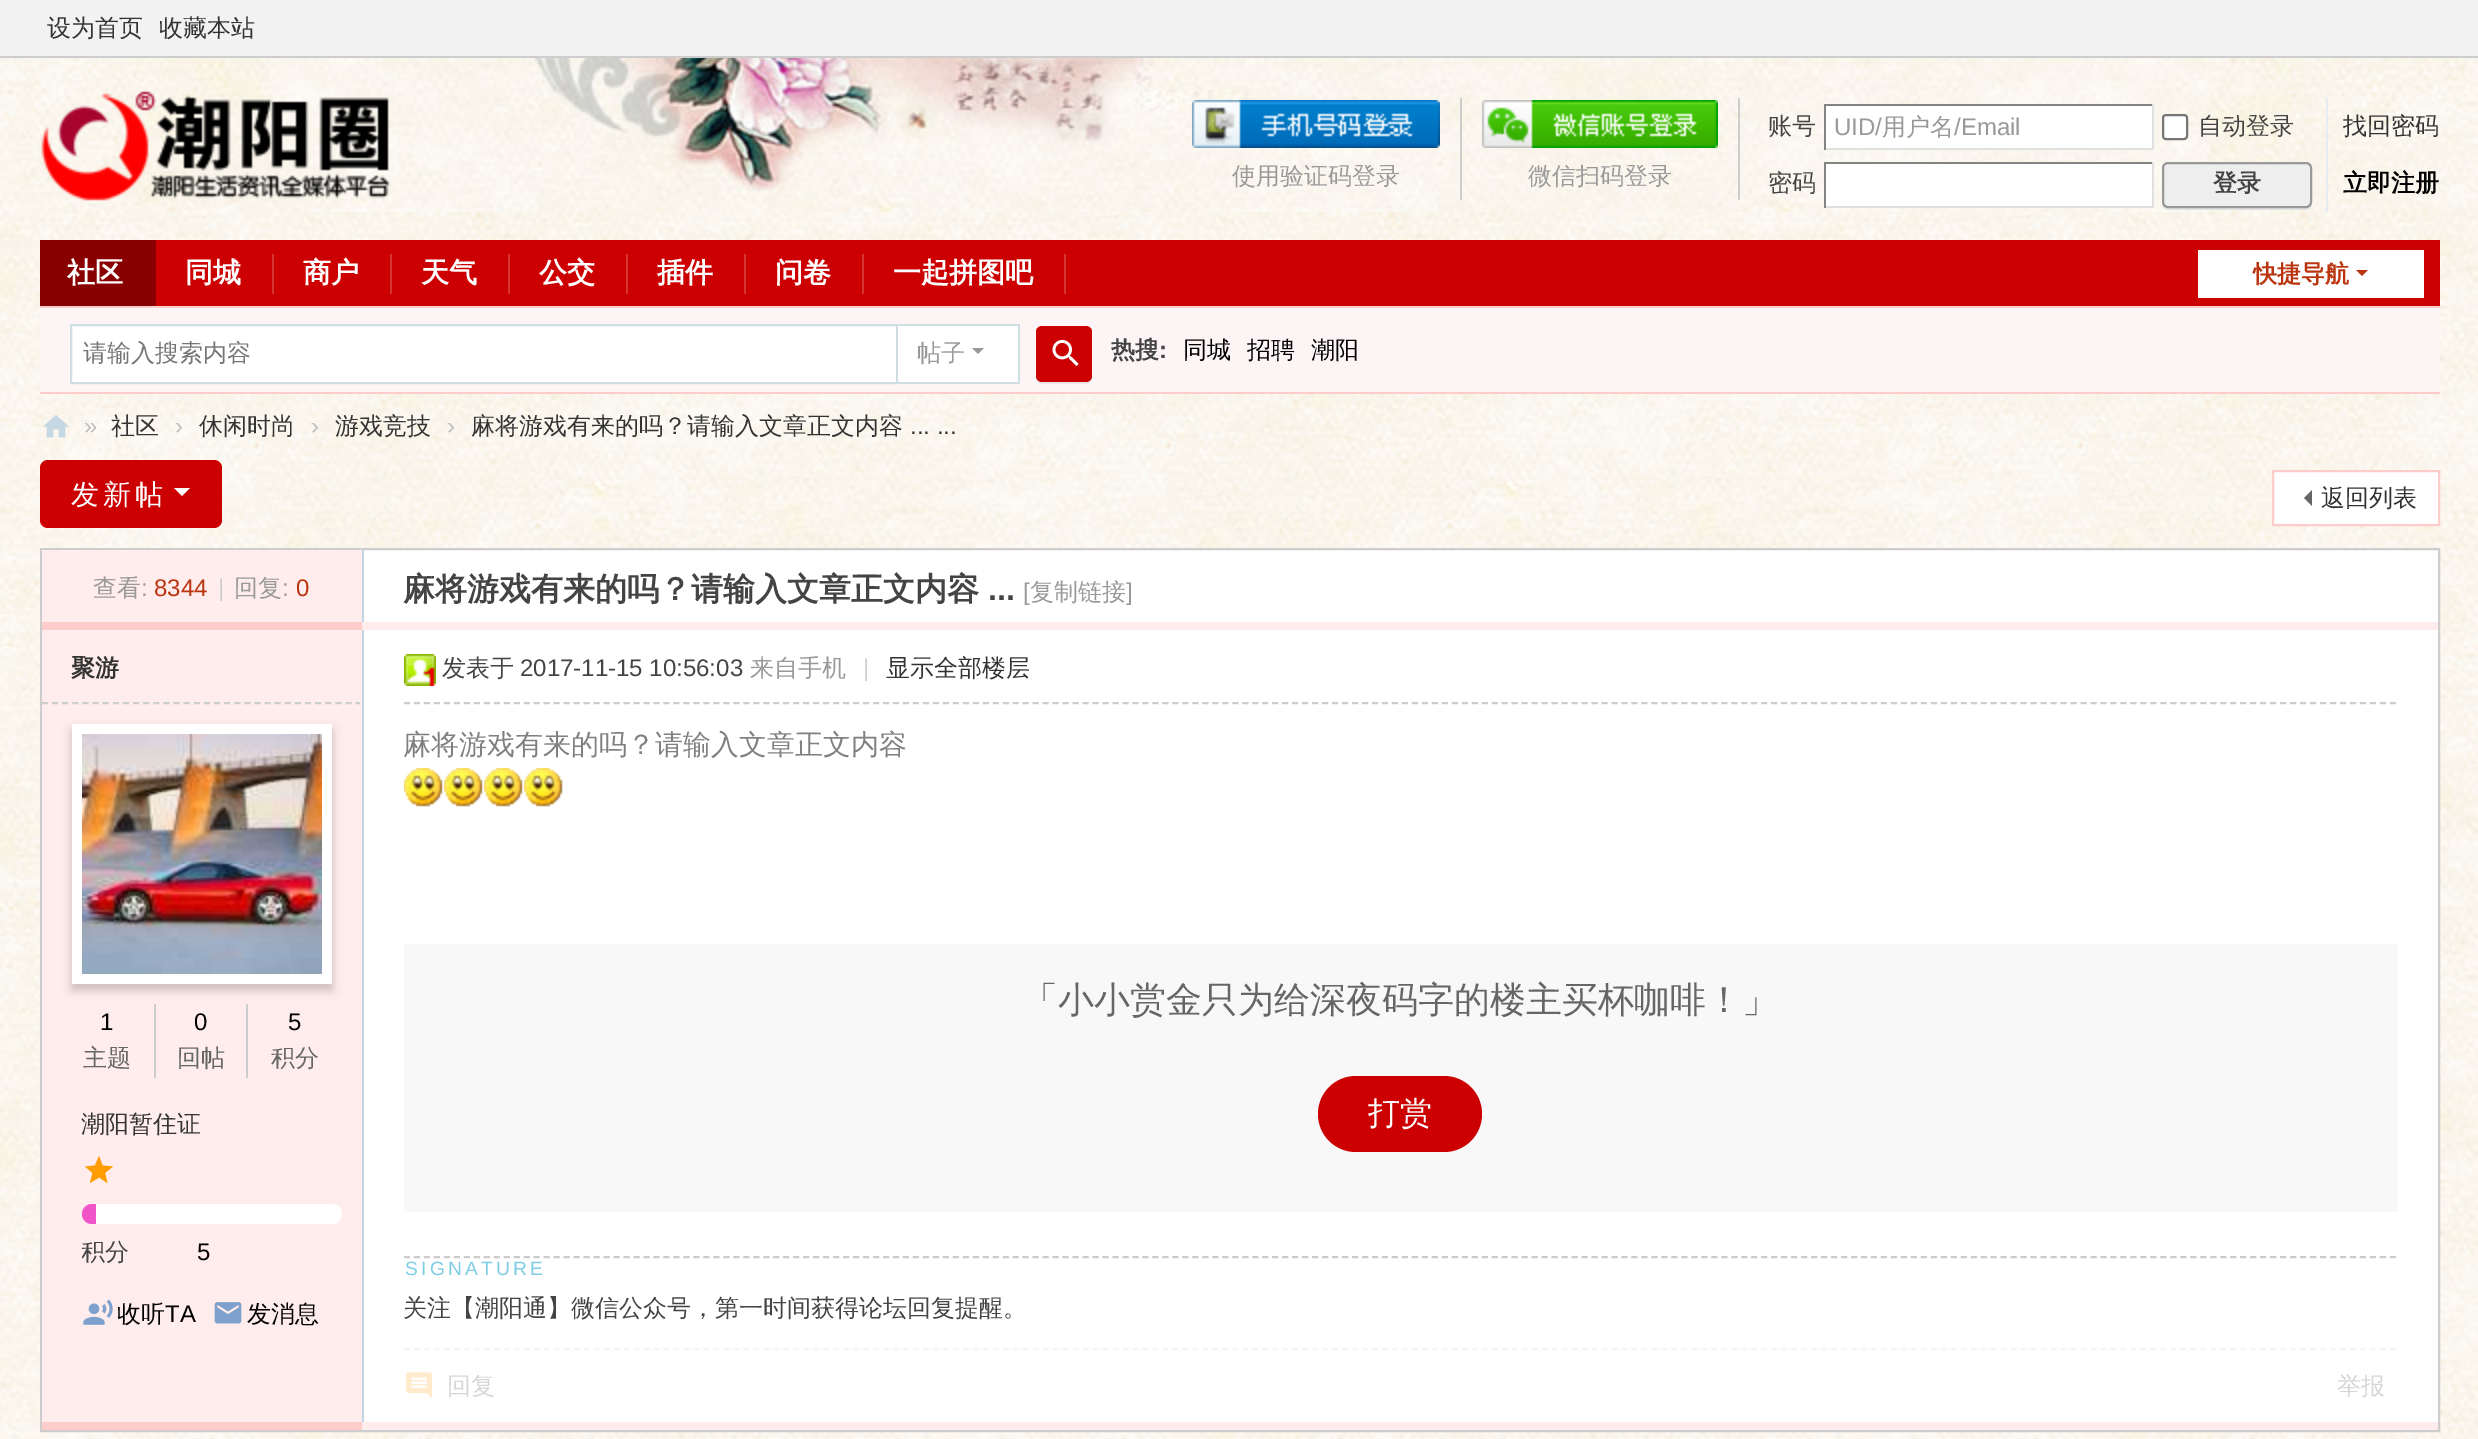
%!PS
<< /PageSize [2478 1439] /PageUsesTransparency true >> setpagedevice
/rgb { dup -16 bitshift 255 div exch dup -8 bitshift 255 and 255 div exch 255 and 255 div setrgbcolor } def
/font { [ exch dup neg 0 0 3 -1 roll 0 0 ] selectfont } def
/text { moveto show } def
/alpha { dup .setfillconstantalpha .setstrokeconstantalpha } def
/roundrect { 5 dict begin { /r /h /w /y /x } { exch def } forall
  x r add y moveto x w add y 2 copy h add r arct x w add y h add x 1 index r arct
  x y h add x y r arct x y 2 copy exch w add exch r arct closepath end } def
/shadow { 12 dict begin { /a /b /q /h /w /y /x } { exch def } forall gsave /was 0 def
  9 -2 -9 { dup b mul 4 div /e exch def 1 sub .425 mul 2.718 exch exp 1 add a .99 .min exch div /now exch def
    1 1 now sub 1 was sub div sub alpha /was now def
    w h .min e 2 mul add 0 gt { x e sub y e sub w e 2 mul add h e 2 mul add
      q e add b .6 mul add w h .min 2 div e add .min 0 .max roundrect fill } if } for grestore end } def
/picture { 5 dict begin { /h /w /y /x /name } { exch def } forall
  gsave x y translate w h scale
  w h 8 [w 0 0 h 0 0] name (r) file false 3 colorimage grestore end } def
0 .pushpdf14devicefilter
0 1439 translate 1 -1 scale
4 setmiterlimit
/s1 { /WenQuanYiZenHei-Medium 24 font 16#333333 rgb } def
/s2 { /WenQuanYiZenHei-Medium 24 font 16#999999 rgb } def
/s3 { /WenQuanYiZenHei-Medium 24 font 16#444444 rgb } def
/s4 { /LiberationSans-Regular 24 font 16#999999 rgb } def
/s5 { /WenQuanYiZenHei-Bold 24 font 16#444444 rgb } def
/s6 { /WenQuanYiZenHei-Bold 24 font 16#000000 rgb } def
/s7 { /WenQuanYiZenHei-Bold 28 font 16#FFFFFF rgb } def
/s8 { /WenQuanYiZenHei-Bold 24 font 16#BA350F rgb } def
/s9 { /WenQuanYiZenHei-Medium 24 font 16#757575 rgb } def
/s10 { /LiberationSans-Bold 24 font 16#444444 rgb } def
/s11 { /WenQuanYiZenHei-Medium 24 font 16#000000 rgb } def
/s12 { /LiberationSans-Regular 24 font 16#BDBDBD rgb } def
/s13 { /LiberationSans-Regular 24 font 16#333333 rgb } def
/s14 { /LiberationSans-Regular 24 font 16#BA350F rgb } def
/s15 { /LiberationSans-Regular 24 font 16#CCCCCC rgb } def
/s16 { /WenQuanYiZenHei-Bold 32 font 16#444444 rgb } def
/s17 { /LiberationSans-Bold 32 font 16#444444 rgb } def
/s18 { /WenQuanYiZenHei-Bold 24 font 16#333333 rgb } def
/s19 { /LiberationSans-Regular 24 font 16#000000 rgb } def
/s20 { /WenQuanYiZenHei-Medium 24 font 16#666666 rgb } def
/s21 { /LiberationSans-Regular 24 font 16#444444 rgb } def
/s22 { /WenQuanYiZenHei-Medium 28 font 16#808080 rgb } def
/s23 { /WenQuanYiZenHei-Medium 36 font 16#666666 rgb } def
/s24 { /WenQuanYiZenHei-Medium 32 font 16#FFFFFF rgb } def
/s25 { /WenQuanYiZenHei-Medium 24 font 16#D6D6D6 rgb } def
16#FFFFFF rgb
0 0 2478 1439 rectfill
(pic1.raw) 0 58 2478 1381 picture
(pic2.raw) 270 58 1940 154 picture
16#F2F2F2 rgb
0 0 2478 56 rectfill
16#CDCDCD rgb
0 56 2478 2 rectfill
s1
(设为首页) 47 36 text
(收藏本站) 159 36 text
(pic3.raw) 41 91 350 110 picture
16#CDCDCD rgb
1460 98 2 102 rectfill
(pic4.raw) 1192 100 248 48 picture
s2
(使用验证码登录) 1232 184 text
16#CDCDCD rgb
1738 98 2 102 rectfill
(pic5.raw) 1482 100 236 48 picture
s2
(微信扫码登录) 1528 184 text
s3
(账号) 1768 134 text
16#FFFFFF rgb
1826 106 326 42 rectfill
16#848484 rgb
1824 104 330 2 rectfill
16#E0E0E0 rgb
2152 104 2 46 rectfill
1824 148 330 2 rectfill
16#848484 rgb
1824 104 2 46 rectfill
s4
(UID/) 1834 135 text
s2
(用户名) 1882 135 text
s4
(/Email) 1954 135 text
16#FFFFFF rgb
2163 115 24 24 3 roundrect gsave fill grestore
16#767676 rgb
2 setlinewidth
stroke
s3
(自动登录) 2198 134 text
s1
(找回密码) 2343 134 text
s3
(密码) 1768 191 text
16#FFFFFF rgb
1826 164 326 42 rectfill
16#848484 rgb
1824 162 330 2 rectfill
16#E0E0E0 rgb
2152 162 2 46 rectfill
1824 206 330 2 rectfill
16#848484 rgb
1824 162 2 46 rectfill
16#E5EDF2 rgb
2326 98 2 114 rectfill
16#E5E5E5 rgb
2162 202 moveto 2162 204 lineto 2162 207 2165 210 2168 210 curveto 2306 210 lineto 2309 210 2312 207 2312 204 curveto 2312 202 lineto 2312 205 2309 208 2306 208 curveto 2168 208 lineto 2165 208 2162 205 2162 202 curveto closepath fill
16#EEEEEE rgb
2163 163 148 44 5 roundrect gsave fill grestore
16#999999 rgb
stroke
s5
(登录) 2213 191 text
s6
(立即注册) 2343 191 text
16#CC0000 rgb
156 240 2284 66 rectfill
16#880000 rgb
40 240 116 66 rectfill
s7
(社区) 67 282 text
16#D63333 rgb
272 254 2 40 rectfill
s7
(同城) 185 282 text
16#D63333 rgb
390 254 2 40 rectfill
s7
(商户) 303 282 text
16#D63333 rgb
508 254 2 40 rectfill
s7
(天气) 421 282 text
16#D63333 rgb
626 254 2 40 rectfill
s7
(公交) 539 282 text
16#D63333 rgb
744 254 2 40 rectfill
s7
(插件) 657 282 text
16#D63333 rgb
862 254 2 40 rectfill
s7
(问卷) 775 282 text
16#D63333 rgb
1064 254 2 40 rectfill
s7
(一起拼图吧) 893 282 text
2198 250 226 48 rectfill
s8
(快捷导航) 2253 282 text
2356 270 moveto 2368 270 lineto 2362 276 lineto closepath fill
16#FDF5F5 rgb
40 308 2400 84 rectfill
16#FFCCCC rgb
40 306 2400 2 rectfill
40 392 2400 2 rectfill
16#CFDEE3 rgb
894 324 126 2 rectfill
1018 324 2 60 rectfill
894 382 126 2 rectfill
16#FFFFFF rgb
71 325 moveto 897 325 lineto 897 383 lineto 71 383 lineto closepath gsave fill grestore
16#CFDEE3 rgb
stroke
s9
(请输入搜索内容) 83 361 text
16#FFFFFF rgb
898 326 120 56 rectfill
s2
(帖子) 917 361 text
972 348 moveto 984 348 lineto 978 354 lineto closepath fill
16#E5E5E5 rgb
1036 376 moveto 1036 385 1042 384 1049 384 curveto 1079 384 lineto 1086 384 1092 385 1092 376 curveto 1092 379 1089 382 1086 382 curveto 1042 382 lineto 1039 382 1036 379 1036 376 curveto closepath fill
16#CC0000 rgb
1036 326 56 56 6 roundrect fill
(pic6.raw) 1052 339 27 27 picture
s5
(热搜) 1111 358 text
s10
(:) 1159 358 text
s11
(同城) 1183 358 text
(招聘) 1247 358 text
(潮阳) 1311 358 text
(pic7.raw) 43 415 26 23 picture
s12
(») 84 434 text
s1
(社区) 111 434 text
s12
(›) 175 434 text
s1
(休闲时尚) 199 434 text
s12
(›) 311 434 text
s1
(游戏竞技) 335 434 text
s12
(›) 447 434 text
s1
(麻将游戏有来的吗？请输入文章正文内容) 471 434 text
s13
(... ...) 910 434 text
16#CC0000 rgb
40 460 182 68 8 roundrect fill
/WenQuanYiZenHei-Medium 28 font
16#FFFFFF rgb
71 504 moveto 4 0 (发新帖) ashow
174 488 moveto 190 488 lineto 182 496 lineto closepath fill
2273 471 moveto 2439 471 lineto 2439 525 lineto 2273 525 lineto closepath gsave fill grestore
16#FFCCCC rgb
stroke
16#666666 rgb
2312 490 moveto 2312 506 lineto 2304 498 lineto closepath fill
s1
(返回列表) 2321 506 text
16#FFFFFF rgb
364 550 2074 872 rectfill
16#CDCDCD rgb
41 549 2398 882 rectstroke
16#C2D5E3 rgb
362 550 2 74 rectfill
16#FFECEC rgb
42 550 320 72 rectfill
s2
(查看) 93 596 text
s4
(:) 141 596 text
s14
(8344) 154 596 text
s15
(|) 218 596 text
s2
(回复) 234 596 text
s4
(:) 282 596 text
s14
(0) 296 596 text
s16
(麻将游戏有来的吗？请输入文章正文内容) 403 600 text
s17
(...) 988 600 text
s4
([) 1023 600 text
s2
(复制链接) 1030 600 text
s4
(]) 1126 600 text
16#FFCCCC rgb
42 622 320 8 rectfill
16#FFECEC rgb
362 622 2076 8 rectfill
16#C2D5E3 rgb
362 630 2 802 rectfill
16#FFCCCC rgb
42 1422 320 8 rectfill
16#FFECEC rgb
362 1422 2076 8 rectfill
42 630 320 792 rectfill
gsave
42 630 318 718 rectclip
16#CDCDCD rgb
[6 4.12] 0 setdash
42 703 moveto 362 703 lineto stroke
grestore
s18
(聚游) 71 676 text
16#CCCCCC rgb
154 1004 2 74 rectfill
246 1004 2 74 rectfill
16#000000 rgb
72 730 260 260 0 5 0.2 shadow
16#FFFFFF rgb
72 724 260 260 rectfill
(pic8.raw) 82 734 240 240 picture
s19
(1) 100 1030 text
s20
(主题) 83 1066 text
s19
(0) 194 1030 text
s20
(回帖) 177 1066 text
s19
(5) 288 1030 text
s20
(积分) 271 1066 text
s1
(潮阳暂住证) 81 1132 text
16#FF9C00 rgb
99 1177.5 moveto 107.5 1183 lineto 105 1173 lineto 113 1166.5 lineto 102.5 1165.5 lineto 99 1156 lineto 95 1165.5 lineto 85 1166.5 lineto 92.5 1173 lineto 90 1183 lineto closepath fill
16#FFFFFF rgb
82 1204 260 20 10 roundrect fill
16#F155C8 rgb
92 1204 moveto 96 1204 lineto 96 1224 lineto 92 1224 lineto 86.5 1224 82 1219.5 82 1214 curveto 82 1208.5 86.5 1204 92 1204 curveto closepath fill
gsave
82 1234 110 38 rectclip
s3
(积分) 81 1260 text
grestore
s19
(5) 197 1260 text
(pic9.raw) 83 1299 30 26 picture
s11
(收听) 117 1322 text
s19
(TA) 165 1322 text
(pic10.raw) 214 1302 28 22 picture
s11
(发消息) 247 1322 text
16#CDCDCD rgb
[6 3.98] 0 setdash
404 703 moveto 2398 703 lineto stroke
(pic11.raw) 404 654 32 32 picture
s3
(发表于) 442 676 text
s21
(2017-11-15 10:56:03) 520 676 text
s2
(来自手机) 750 676 text
s15
(|) 863 676 text
s1
(显示全部楼层) 886 676 text
s22
(麻将游戏有来的吗？请输入文章正文内容) 403 754 text
(pic12.raw) 404 768 39 39 picture
(pic12.raw) 444 768 39 39 picture
(pic12.raw) 484 768 39 39 picture
(pic12.raw) 524 768 39 39 picture
16#F8F8F8 rgb
404 944 1994 268 rectfill
s23
(「小小赏金只为给深夜码字的楼主买杯咖啡！」) 1022 1012 text
16#CC0000 rgb
1318 1076 164 76 38 roundrect fill
s24
(打赏) 1368 1124 text
16#CCCCCC rgb
404 1257 moveto 2398 1257 lineto stroke
/LiberationSans-Regular 19.25 font
16#7FCCE5 rgb
405 1275 moveto 3.25 0 (SIGNATURE) ashow
s3
(关注【潮阳通】微信公众号，第一时间获得论坛回复提醒。) 403 1316 text
16#F5F5F5 rgb
404 1349 moveto 2398 1349 lineto stroke
(pic13.raw) 406 1372 26 26 picture
s25
(回复) 447 1394 text
(举报) 2337 1394 text
.poppdf14devicefilter showpage
